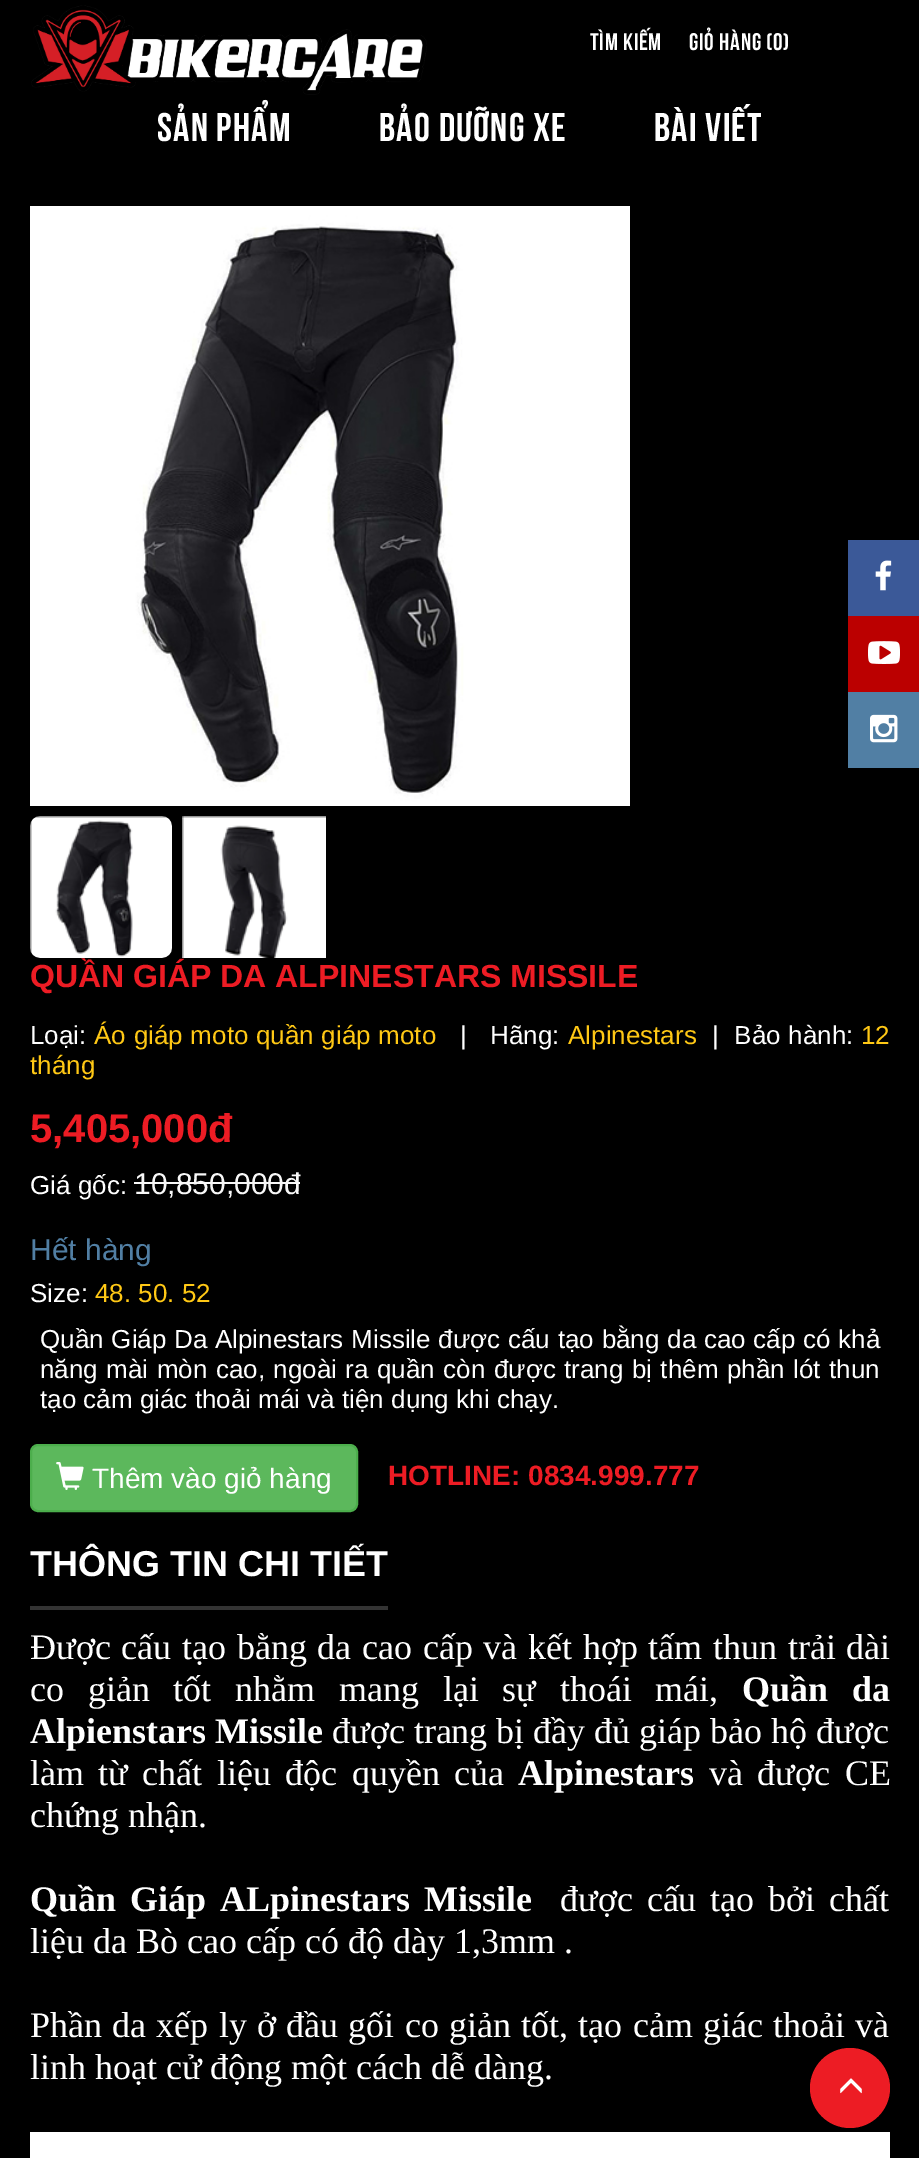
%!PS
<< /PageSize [919 2158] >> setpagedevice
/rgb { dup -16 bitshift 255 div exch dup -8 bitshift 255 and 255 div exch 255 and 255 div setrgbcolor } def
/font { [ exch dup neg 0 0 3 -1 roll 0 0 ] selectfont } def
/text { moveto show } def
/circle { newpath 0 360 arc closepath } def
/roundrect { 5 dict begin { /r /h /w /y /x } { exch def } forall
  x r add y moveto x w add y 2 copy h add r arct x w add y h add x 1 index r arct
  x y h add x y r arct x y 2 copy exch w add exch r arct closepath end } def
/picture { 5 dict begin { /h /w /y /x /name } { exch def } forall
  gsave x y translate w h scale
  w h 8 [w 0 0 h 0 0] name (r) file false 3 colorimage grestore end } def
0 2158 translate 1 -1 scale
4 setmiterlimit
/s1 { /LiberationSans-Bold 32 font 16#ED1C24 rgb } def
/s2 { /LiberationSans-Regular 26 font 16#FFFFFF rgb } def
/s3 { /LiberationSans-Regular 26 font 16#FFC815 rgb } def
/s4 { /LiberationSans-Bold 40 font 16#ED1C24 rgb } def
/s5 { /LiberationSans-Regular 30 font 16#F8F8F8 rgb } def
/s6 { /LiberationSans-Regular 30 font 16#517FA4 rgb } def
/s7 { /LiberationSans-Regular 28 font 16#FFFFFF rgb } def
/s8 { /LiberationSans-Bold 28 font 16#ED1C24 rgb } def
/s9 { /LiberationSans-Bold 36 font 16#FFFFFF rgb } def
/s10 { /LiberationSerif-Bold 36 font 16#FFFFFF rgb } def
/s11 { /LiberationSerif-Regular 36 font 16#FFFFFF rgb } def
16#000000 rgb
0 0 919 2158 rectfill
(pic1.raw) 31 5 396 90 picture
/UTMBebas-Regular 24 font
16#FFFFFF rgb
590 50 moveto 0.75 0 (Tìm kiếm) ashow
689 50 moveto 0.75 0 (Giỏ hàng \(0\)) ashow
/UTMBebas-Regular 40 font
157 141 moveto 1.25 0 (SẢN PHẨM) ashow
379 141 moveto 1.25 0 (BẢO DƯỠNG XE) ashow
654 141 moveto 1.25 0 (BÀI VIẾT) ashow
16#3B5998 rgb
848 540 71 76 rectfill
(pic2.raw) 875 560 17 31 picture
16#BB0000 rgb
848 616 71 76 rectfill
(pic3.raw) 868 641 32 23 picture
16#517FA4 rgb
848 692 71 76 rectfill
(pic4.raw) 870 714 28 29 picture
(pic5.raw) 30 206 600 600 picture
(pic6.raw) 30 816 142 142 picture
(pic7.raw) 182 816 144 142 picture
s1
(QUẦN GIÁP DA ALPINESTARS MISSILE) 30 987 text
s2
(Loại:) 30 1044 text
16#FFC815 rgb
94 1044 moveto 0.5 0 32 (Áo giáp moto quần giáp moto) widthshow
s2
(|) 460 1044 text
(Hãng:) 490 1044 text
s3
(Alpinestars) 568 1044 text
16#FFFFFF rgb
712 1044 moveto 0.5 0 32 (|  Bảo hành:) widthshow
s3
(12) 861 1044 text
(tháng) 30 1074 text
s4
(5,405,000đ) 30 1142 text
s2
(Giá gốc:) 30 1194 text
s5
(10,850,000đ) 134 1194 text
134 1182 166 2 rectfill
s6
(Hết hàng) 30 1260 text
s2
(Size:) 30 1302 text
s3
(48. 50. 52) 95 1302 text
16#FFFFFF rgb
40 1348 moveto 0.5 0 32 (Quần Giáp Da Alpinestars Missile được cấu tạo bằng da cao cấp có khả) widthshow
40 1378 moveto 1.25 0 32 (năng mài mòn cao, ngoài ra quần còn được trang bị thêm phần lót thun) widthshow
(tạo cảm giác thoải mái và tiện dụng khi chạy.) 40 1408 text
16#5CB85C rgb
31 1445 326 66 7 roundrect gsave fill grestore
16#4CAE4C rgb
2 setlinewidth
stroke
(pic8.raw) 56 1462 28 28 picture
s7
(Thêm vào giỏ hàng) 92 1488 text
s8
(HOTLINE: 0834.999.777) 388 1485 text
16#333333 rgb
30 1606 358 4 rectfill
s9
(THÔNG TIN CHI TIẾT) 30 1576 text
/LiberationSerif-Regular 36 font
30 1659 moveto 1.7 0 32 (Được cấu tạo bằng da cao cấp và kết hợp tấm thun trải dài) widthshow
30 1701 moveto 14.75 0 32 (co giản tốt nhằm mang lại sự thoái mái,) widthshow
/LiberationSerif-Bold 36 font
742 1701 moveto 14.75 0 32 (Quần da) widthshow
(Alpienstars Missile) 30 1743 text
s11
(được trang bị đầy đủ giáp bảo hộ được) 332 1743 text
30 1785 moveto 5.5 0 32 (làm từ chất liệu độc quyền của) widthshow
s10
(Alpinestars) 518 1785 text
/LiberationSerif-Regular 36 font
709 1785 moveto 5.5 0 32 (và được CE) widthshow
(chứng nhận.) 30 1827 text
/LiberationSerif-Bold 36 font
30 1911 moveto 5 0 32 (Quần Giáp ALpinestars Missile) widthshow
/LiberationSerif-Regular 36 font
560 1911 moveto 5 0 32 (được cấu tạo bởi chất) widthshow
(liệu da Bò cao cấp có độ dày 1,3mm .) 30 1953 text
30 2037 moveto 1.25 0 32 (Phần da xếp ly ở đầu gối co giản tốt, tạo cảm giác thoải và) widthshow
(linh hoạt cử động một cách dễ dàng.) 30 2079 text
30 2132 860 26 rectfill
16#ED1C24 rgb
850 2088 40 circle fill
(pic9.raw) 840 2078 22 16 picture
showpage
